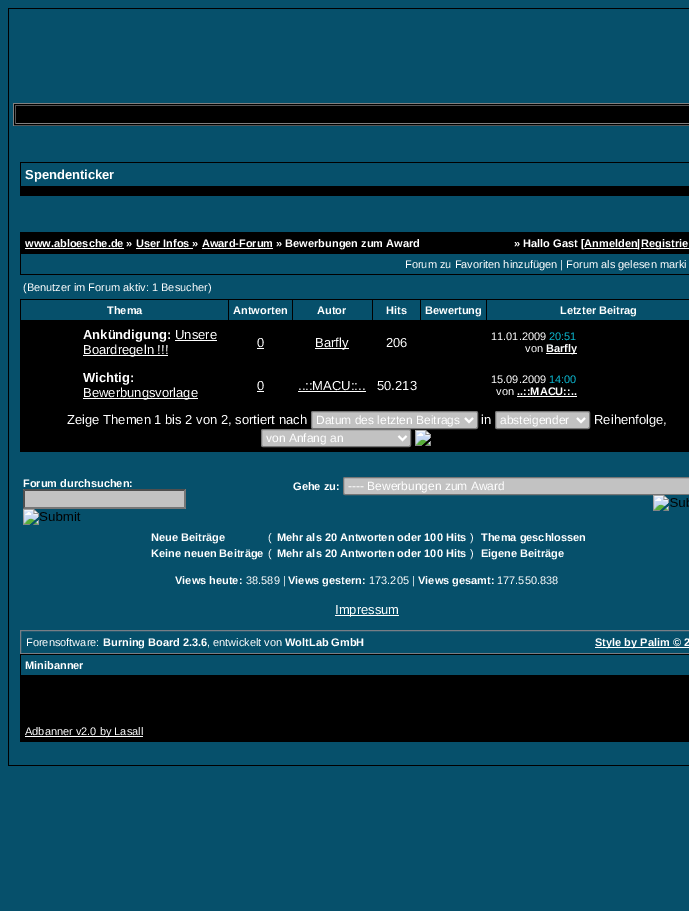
%!PS
<< /PageSize [689 911] >> setpagedevice
/rgb { dup -16 bitshift 255 div exch dup -8 bitshift 255 and 255 div exch 255 and 255 div setrgbcolor } def
/font { [ exch dup neg 0 0 3 -1 roll 0 0 ] selectfont } def
/text { moveto show } def
/roundrect { 5 dict begin { /r /h /w /y /x } { exch def } forall
  x r add y moveto x w add y 2 copy h add r arct x w add y h add x 1 index r arct
  x y h add x y r arct x y 2 copy exch w add exch r arct closepath end } def
/picture { 5 dict begin { /h /w /y /x /name } { exch def } forall
  gsave x y translate w h scale
  w h 8 [w 0 0 h 0 0] name (r) file false 3 colorimage grestore end } def
0 911 translate 1 -1 scale
4 setmiterlimit
/s1 { /LiberationSans-Bold 13 font 16#FFFFFF rgb } def
/s2 { /LiberationSans-Bold 11 font 16#FFFFFF rgb } def
/s3 { /LiberationSans-Regular 11 font 16#FFFFFF rgb } def
/s4 { /LiberationSans-Regular 13 font 16#FFFFFF rgb } def
/s5 { /LiberationSans-Regular 11 font 16#0CB6CE rgb } def
/s6 { /LiberationSans-Regular 12 font 16#FFFFFF rgb } def
16#06506B rgb
0 0 689 911 rectfill
16#000000 rgb
8 8 681 758 rectfill
16#06506B rgb
9 9 680 756 rectfill
16#000000 rgb
14 104 675 21 rectfill
16#808080 rgb
13 103 676 1 rectfill
16#555555 rgb
13 125 676 1 rectfill
16#808080 rgb
13 103 1 23 rectfill
16#555555 rgb
15 105 674 1 rectfill
16#808080 rgb
15 123 674 1 rectfill
16#555555 rgb
15 105 1 19 rectfill
16#000000 rgb
20 162 669 34 rectfill
16#06506B rgb
21 163 668 23 rectfill
s1
(Spendenticker) 25 179 text
16#000000 rgb
20 232 669 43 rectfill
16#FFFFFF rgb
25 248 99 1 rectfill
s2
(www.abloesche.de » User Infos » Award-Forum » Bewerbungen zum Award) 25 247 text
136 248 57 1 rectfill
202 248 71 1 rectfill
(» Hallo Gast [Anmelden|) 514 247 text
585 248 53 1 rectfill
641 248 48 1 rectfill
(Registrie) 641 247 text
16#06506B rgb
21 254 668 20 rectfill
s3
(Forum zu Favoriten hinzufügen | Forum als gelesen marki) 405 268 text
(\(Benutzer im Forum aktiv: 1 Besucher\)) 23 291 text
16#000000 rgb
20 299 669 153 rectfill
16#06506B rgb
21 300 207 20 rectfill
s2
(Thema) 107 314 text
16#06506B rgb
229 300 63 20 rectfill
s2
(Antworten) 233 314 text
16#06506B rgb
293 300 79 20 rectfill
s2
(Autor) 317 314 text
16#06506B rgb
373 300 47 20 rectfill
s2
(Hits) 386 314 text
16#06506B rgb
421 300 65 20 rectfill
s2
(Bewertung) 425 314 text
16#06506B rgb
487 300 202 20 rectfill
s2
(Letzter Beitrag) 560 314 text
s1
(Ankündigung:) 83 339 text
s4
(Unsere) 175 339 text
175 340 42 1 rectfill
83 355 85 1 rectfill
(Boardregeln !!!) 83 354 text
(0) 257 347 text
257 348 7 1 rectfill
315 348 34 1 rectfill
(Barfly) 315 347 text
(206) 386 347 text
s3
(11.01.2009) 491 340 text
s5
(20:51) 549 340 text
s3
(von) 525 352 text
546 353 31 1 rectfill
s2
(Barfly) 546 352 text
s1
(Wichtig:) 83 382 text
83 398 115 1 rectfill
s4
(Bewerbungsvorlage) 83 397 text
(0) 257 390 text
257 391 7 1 rectfill
(..::MACU::..) 298 390 text
298 391 68 1 rectfill
(50.213) 377 390 text
s3
(15.09.2009) 491 383 text
s5
(14:00) 549 383 text
s3
(von) 496 395 text
s2
(..::MACU::..) 517 395 text
517 396 60 1 rectfill
s4
(Zeige Themen 1 bis 2 von 2, sortiert nach) 67 424 text
16#C2C2C2 rgb
311.5 411.5 166 17 1.5 roundrect gsave fill grestore
16#767676 rgb
stroke
16#FFFFFF rgb
2 setlinewidth
465 418 moveto 469 422 lineto 473 418 lineto stroke
s6
(Datum des letzten Beitrags) 316 424 text
s4
(in) 481 424 text
16#C2C2C2 rgb
495.5 411.5 94 17 1.5 roundrect gsave fill grestore
16#767676 rgb
1 setlinewidth
stroke
16#FFFFFF rgb
2 setlinewidth
577 418 moveto 581 422 lineto 585 418 lineto stroke
s6
(absteigender) 500 424 text
s4
(Reihenfolge,) 594 424 text
16#C2C2C2 rgb
261.5 429.5 149 17 1.5 roundrect gsave fill grestore
16#767676 rgb
1 setlinewidth
stroke
16#FFFFFF rgb
2 setlinewidth
398.5 436 moveto 402.5 440 lineto 406.5 436 lineto stroke
s6
(von Anfang an) 266 442 text
(pic1.raw) 415 430 16 16 picture
s2
(Forum durchsuchen:) 23 487 text
16#C2C2C2 rgb
23 489 163 20 rectfill
16#4F4F4F rgb
23 489 moveto 186 489 lineto 184 491 lineto 25 491 lineto closepath fill
16#767676 rgb
186 489 moveto 186 509 lineto 184 507 lineto 184 491 lineto closepath fill
186 509 moveto 23 509 lineto 25 507 lineto 184 507 lineto closepath fill
16#4F4F4F rgb
23 509 moveto 23 489 lineto 25 491 lineto 25 507 lineto closepath fill
(pic2.raw) 23 509 58 16 picture
s2
(Gehe zu:) 293 490 text
16#C2C2C2 rgb
343.5 477.5 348 17 1.5 roundrect gsave fill grestore
16#767676 rgb
1 setlinewidth
stroke
s6
(---- Bewerbungen zum Award) 348 490 text
(pic3.raw) 653 495 36 16 picture
s2
(Neue Beiträge) 151 541 text
s3
(\() 268 541 text
s2
(Mehr als 20 Antworten oder 100 Hits) 277 541 text
s3
(\)) 470 541 text
s2
(Thema geschlossen) 481 541 text
(Keine neuen Beiträge) 151 557 text
s3
(\() 268 557 text
s2
(Mehr als 20 Antworten oder 100 Hits) 277 557 text
s3
(\)) 470 557 text
s2
(Eigene Beiträge) 481 557 text
(Views heute:) 175 584 text
s3
(38.589 |) 246 584 text
s2
(Views gestern:) 288 584 text
s3
(173.205 |) 369 584 text
s2
(Views gesamt:) 418 584 text
s3
(177.550.838) 497 584 text
335 615 64 1 rectfill
s4
(Impressum) 335 614 text
16#777E86 rgb
20.5 630.5 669 23 rectstroke
s3
(Forensoftware:) 26 646 text
s2
(Burning Board 2.3.6) 103 646 text
s3
(, entwickelt von) 207 646 text
s2
(WoltLab GmbH) 285 646 text
595 647 94 1 rectfill
(Style by Palim © 2) 595 646 text
16#000000 rgb
20 654 669 88 rectfill
16#06506B rgb
21 655 668 20 rectfill
s2
(Minibanner) 25 669 text
25 736 118 1 rectfill
s3
(Adbanner v2.0 by Lasall) 25 735 text
showpage
